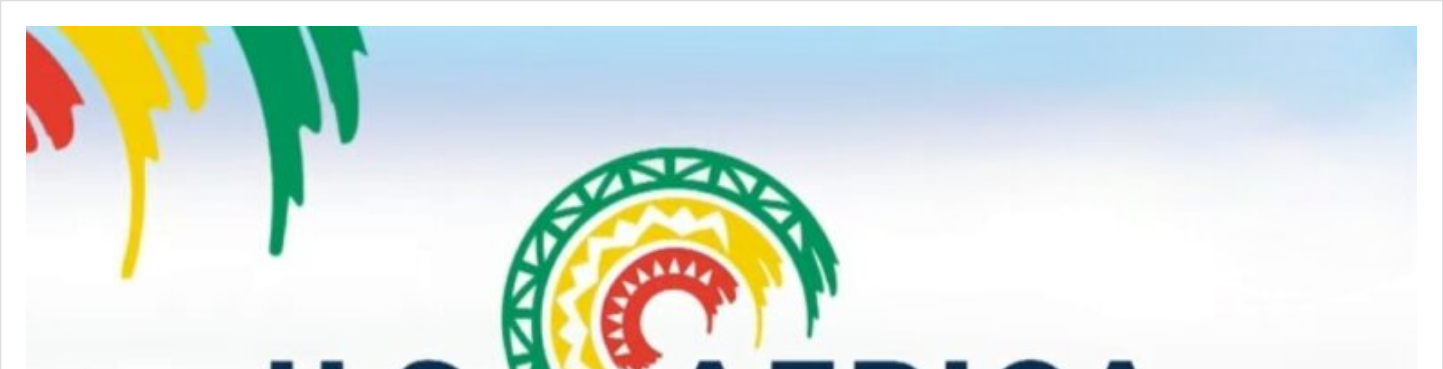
%!PS
<< /PageSize [1443 369] >> setpagedevice
/rgb { dup -16 bitshift 255 div exch dup -8 bitshift 255 and 255 div exch 255 and 255 div setrgbcolor } def
/picture { 5 dict begin { /h /w /y /x /name } { exch def } forall
  gsave x y translate w h scale
  w h 8 [w 0 0 h 0 0] name (r) file false 3 colorimage grestore end } def
0 369 translate 1 -1 scale
4 setmiterlimit
16#FFFFFF rgb
0 0 1443 369 rectfill
16#DCDCDE rgb
0.5 0.5 1442 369 rectstroke
(pic1.raw) 26 26 1391 343 picture
showpage
